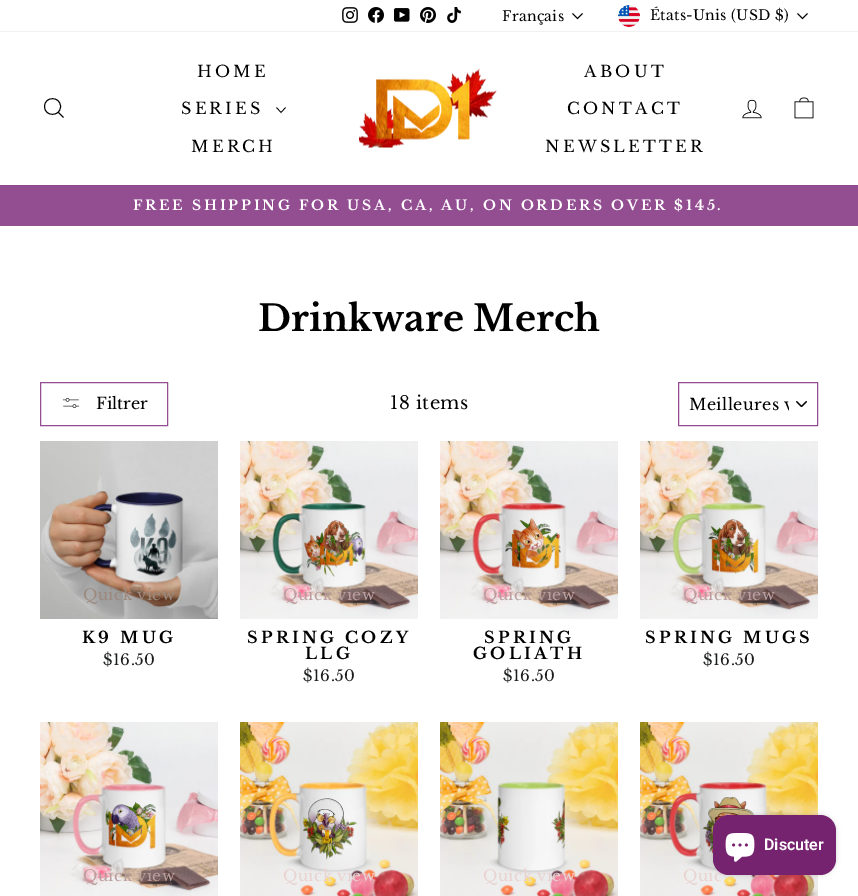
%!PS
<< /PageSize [858 896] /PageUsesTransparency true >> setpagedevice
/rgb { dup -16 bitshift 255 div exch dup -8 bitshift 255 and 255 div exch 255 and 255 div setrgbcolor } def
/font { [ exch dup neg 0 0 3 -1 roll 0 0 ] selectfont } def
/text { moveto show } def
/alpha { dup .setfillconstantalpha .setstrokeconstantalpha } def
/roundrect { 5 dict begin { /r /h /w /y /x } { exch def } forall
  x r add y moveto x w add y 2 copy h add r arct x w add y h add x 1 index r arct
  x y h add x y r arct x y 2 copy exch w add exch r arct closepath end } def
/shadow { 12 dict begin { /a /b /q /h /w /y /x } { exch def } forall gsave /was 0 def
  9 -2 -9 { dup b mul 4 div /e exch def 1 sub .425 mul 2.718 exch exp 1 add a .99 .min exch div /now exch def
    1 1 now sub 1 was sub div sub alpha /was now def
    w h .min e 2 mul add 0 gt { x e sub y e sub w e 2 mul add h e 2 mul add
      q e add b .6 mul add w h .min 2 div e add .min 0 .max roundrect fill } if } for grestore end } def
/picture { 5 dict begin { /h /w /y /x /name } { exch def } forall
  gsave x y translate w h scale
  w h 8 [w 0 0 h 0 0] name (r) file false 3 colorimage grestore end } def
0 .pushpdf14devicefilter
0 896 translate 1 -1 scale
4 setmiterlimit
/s1 { /LibreBaskerville-Bold 36 font 16#000000 rgb } def
/s2 { /LibreBaskerville-Regular 16 font 16#000000 rgb } def
/s3 { /Roboto-SemiBold 16 font 16#FFFFFF rgb } def
16#FFFFFF rgb
0 0 858 896 rectfill
(pic1.raw) 342 7 16 16 picture
(pic2.raw) 368 7 16 16 picture
(pic3.raw) 394 8 16 14 picture
(pic4.raw) 420 7 16 16 picture
(pic5.raw) 447 7 14 16 picture
/LibreBaskerville-Regular 14 font
16#000000 rgb
502 21 moveto 0.3 0 (Français) ashow
0.8 setlinewidth
572.5 13.5 moveto 577.5 18.5 lineto 582.5 13.5 lineto stroke
(pic6.raw) 618 5 22 22 picture
650 20 moveto 0.3 0 (États-Unis \(USD $\)) ashow
797.5 13.5 moveto 802.5 18.5 lineto 807.5 13.5 lineto stroke
16#934E92 rgb
0 185 858 41 rectfill
16#000000 rgb
0 32 858 153 0 0.5 0.2 shadow
16#FFFFFF rgb
0 32 858 153 rectfill
16#000000 rgb
0.9 setlinewidth
60.5 106.5 moveto 60.5 117 44.5 117 44.5 106.5 curveto 44.5 96 60.5 96 60.5 106.5 curveto closepath 63.5 117.5 moveto 58.5 112.5 lineto stroke
/LibreBaskerville-Regular 16 font
197 77 moveto 3.25 0 (HOME) ashow
181 114 moveto 3.25 0 (SERIES) ashow
0.7 setlinewidth
276.5 107.5 moveto 281 112.5 lineto 285.5 107.5 lineto stroke
191 152 moveto 3.25 0 (MERCH) ashow
(pic7.raw) 359 68 138 80 picture
584 77 moveto 3.25 0 (ABOUT) ashow
567 114 moveto 3.25 0 (CONTACT) ashow
545 152 moveto 3.25 0 (NEWSLETTER) ashow
(pic8.raw) 742 99 20 20 picture
(pic9.raw) 794 97 20 22 picture
/LibreBaskerville-Bold 13.75 font
16#FFFFFF rgb
133 210 moveto 2.75 0 (FREE SHIPPING FOR USA, CA, AU, ON ORDERS OVER $145.) ashow
s1
(Drinkware Merch) 258 331 text
16#934E92 rgb
1 setlinewidth
40.5 382.5 127 43 rectstroke
(pic10.raw) 62 398 18 10 picture
s2
(Filtrer) 96 409 text
/LibreBaskerville-Regular 18 font
390 409 moveto 0.5 0 (18 items) ashow
(pic11.raw) 796 401 11 6 picture
16#934E92 rgb
678.5 382.5 139 43 rectstroke
gsave
689 393 100 22 rectclip
/LibreBaskerville-Regular 16 font
16#000000 rgb
689 410 moveto 0.4 0 (Meilleures v) ashow
grestore
(pic12.raw) 40 441 178 178 picture
/LibreBaskerville-Regular 15.25 font
16#9C897D rgb
83 600 moveto 0.4 0 (Quick view) ashow
/LibreBaskerville-Bold 16 font
16#000000 rgb
82 643 moveto 3.25 0 (K9 MUG) ashow
/LibreBaskerville-Regular 15.25 font
16#1C1D1D rgb
103 665 moveto 0.5 0 ($16.50) ashow
(pic13.raw) 240 441 178 178 picture
16#BA9E9D rgb
283 600 moveto 0.4 0 (Quick view) ashow
/LibreBaskerville-Bold 16 font
16#000000 rgb
247 643 moveto 3.25 0 (SPRING COZY) ashow
305 659 moveto 3.25 0 (LLG) ashow
/LibreBaskerville-Regular 15.25 font
16#1C1D1D rgb
303 681 moveto 0.5 0 ($16.50) ashow
(pic14.raw) 440 441 178 178 picture
16#BA9E9D rgb
483 600 moveto 0.4 0 (Quick view) ashow
/LibreBaskerville-Bold 16 font
16#000000 rgb
484 643 moveto 3.25 0 (SPRING) ashow
473 659 moveto 3.25 0 (GOLIATH) ashow
/LibreBaskerville-Regular 15.25 font
16#1C1D1D rgb
503 681 moveto 0.5 0 ($16.50) ashow
(pic15.raw) 640 441 178 178 picture
16#BA9E9D rgb
683 600 moveto 0.4 0 (Quick view) ashow
/LibreBaskerville-Bold 16 font
16#000000 rgb
645 643 moveto 3.25 0 (SPRING MUGS) ashow
/LibreBaskerville-Regular 15.25 font
16#1C1D1D rgb
703 665 moveto 0.5 0 ($16.50) ashow
(pic16.raw) 40 722 178 174 picture
16#BA9E9D rgb
83 881 moveto 0.4 0 (Quick view) ashow
(pic17.raw) 240 722 178 174 picture
16#E9D2D0 rgb
283 881 moveto 0.4 0 (Quick view) ashow
(pic18.raw) 440 722 178 174 picture
483 881 moveto 0.4 0 (Quick view) ashow
(pic19.raw) 640 722 178 174 picture
683 881 moveto 0.4 0 (Quic) ashow
16#000000 rgb
713 815 123 60 16 2.5 0.15 shadow
16#76236F rgb
713 815 123 60 16 roundrect fill
(pic20.raw) 725 833 30 29 picture
s3
(Discuter) 764 850 text
.poppdf14devicefilter showpage
